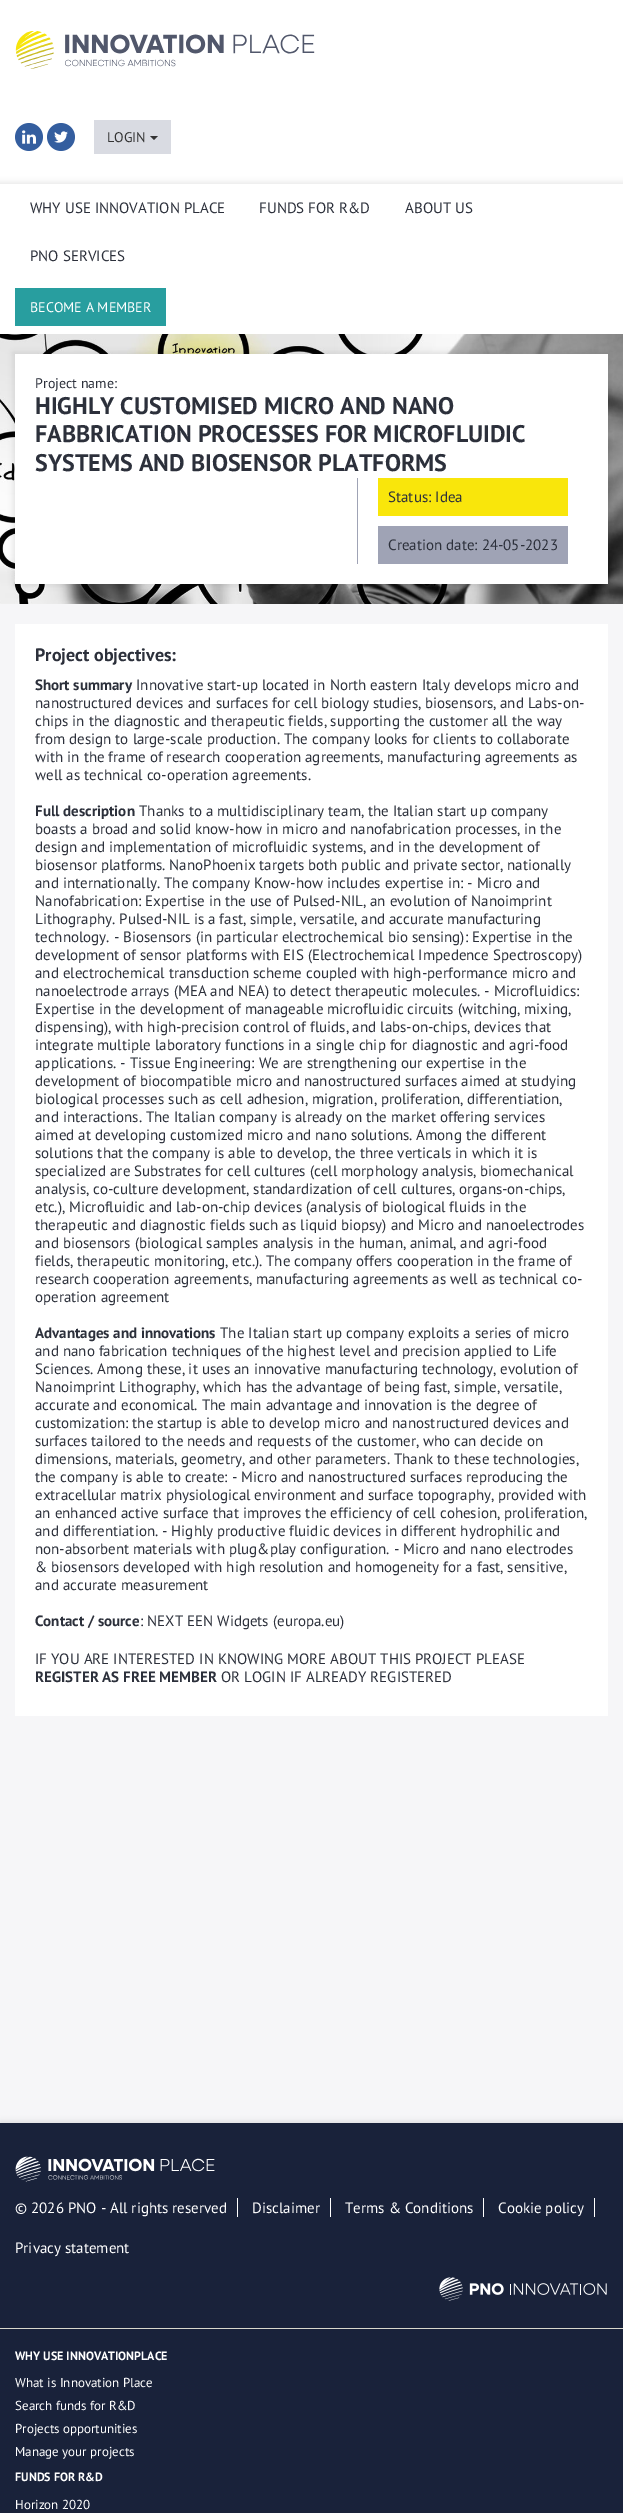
%!PS
<< /PageSize [623 2513] /PageUsesTransparency true >> setpagedevice
/rgb { dup -16 bitshift 255 div exch dup -8 bitshift 255 and 255 div exch 255 and 255 div setrgbcolor } def
/font { [ exch dup neg 0 0 3 -1 roll 0 0 ] selectfont } def
/text { moveto show } def
/alpha { dup .setfillconstantalpha .setstrokeconstantalpha } def
/roundrect { 5 dict begin { /r /h /w /y /x } { exch def } forall
  x r add y moveto x w add y 2 copy h add r arct x w add y h add x 1 index r arct
  x y h add x y r arct x y 2 copy exch w add exch r arct closepath end } def
/shadow { 12 dict begin { /a /b /q /h /w /y /x } { exch def } forall gsave /was 0 def
  9 -2 -9 { dup b mul 4 div /e exch def 1 sub .425 mul 2.718 exch exp 1 add a .99 .min exch div /now exch def
    1 1 now sub 1 was sub div sub alpha /was now def
    w h .min e 2 mul add 0 gt { x e sub y e sub w e 2 mul add h e 2 mul add
      q e add b .6 mul add w h .min 2 div e add .min 0 .max roundrect fill } if } for grestore end } def
/picture { 5 dict begin { /h /w /y /x /name } { exch def } forall
  gsave x y translate w h scale
  w h 8 [w 0 0 h 0 0] name (r) file false 3 colorimage grestore end } def
0 .pushpdf14devicefilter
0 2513 translate 1 -1 scale
4 setmiterlimit
/s1 { /PTSans-Regular 14 font 16#333333 rgb } def
/s2 { /PTSans-Regular 15 font 16#2C303B rgb } def
/s3 { /PTSans-Regular 14 font 16#FFFFFF rgb } def
/s4 { /PTSans-Regular 14 font 16#2C303B rgb } def
/s5 { /PTSans-Bold 24 font 16#2C303B rgb } def
/s6 { /PTSans-Bold 18 font 16#2C303B rgb } def
/s7 { /PTSans-Bold 15 font 16#2C303B rgb } def
/s8 { /PTSans-Regular 15 font 16#FFFFFF rgb } def
/s9 { /PTSans-Bold 12 font 16#FFFFFF rgb } def
/s10 { /PTSans-Regular 13 font 16#FFFFFF rgb } def
16#F6F6F8 rgb
0 0 623 2513 rectfill
16#FFFFFF rgb
0 0 623 184 rectfill
(pic1.raw) 15 31 300 38 picture
(pic2.raw) 15 123 28 28 picture
(pic3.raw) 47 123 28 28 picture
16#D9DBE2 rgb
94 120 77 34 rectfill
s1
(LOGIN) 107 142 text
150 136 moveto 158 136 lineto 154 140 lineto closepath fill
16#323232 rgb
-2 182 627 154 0 2.5 0.1 shadow
16#FFFFFF rgb
0 184 623 150 rectfill
s2
(WHY USE INNOVATION PLACE) 30 213 text
(FUNDS FOR R&D) 259 213 text
(ABOUT US) 405 213 text
(PNO SERVICES) 30 261 text
16#289E9F rgb
15 288 151 38 rectfill
s3
(BECOME A MEMBER) 30 312 text
(pic4.raw) 0 334 623 270 picture
16#323232 rgb
13 352 597 234 0 2.5 0.1 shadow
16#FFFFFF rgb
15 354 593 230 rectfill
s4
(Project name:) 35 388 text
s5
(HIGHLY CUSTOMISED MICRO AND NANO) 35 414 text
(FABBRICATION PROCESSES FOR MICROFLUIDIC) 35 442 text
(SYSTEMS AND BIOSENSOR PLATFORMS) 35 471 text
16#9FA3B5 rgb
357 478 1 86 rectfill
16#F9E60B rgb
378 478 190 38 rectfill
s2
(Status: Idea) 388 502 text
16#9FA3B5 rgb
378 526 190 38 rectfill
s2
(Creation date: 24-05-2023) 388 550 text
16#FFFFFF rgb
15 624 593 1092 rectfill
s6
(Project objectives:) 35 661 text
s7
(Short summary) 35 690 text
s2
(Innovative start-up located in North eastern Italy develops micro and) 136 690 text
(nanostructured devices and surfaces for cell biology studies, biosensors, and Labs-on-) 35 708 text
(chips in the diagnostic and therapeutic fields, supporting the customer all the way) 35 726 text
(from design to large-scale production. The company looks for clients to collaborate) 35 744 text
(with in the frame of research cooperation agreements, manufacturing agreements as) 35 762 text
(well as technical co-operation agreements.) 35 780 text
s7
(Full description) 35 816 text
s2
(Thanks to a multidisciplinary team, the Italian start up company) 139 816 text
(boasts a broad and solid know-how in micro and nanofabrication processes, in the) 35 834 text
(design and implementation of microfluidic systems, and in the development of) 35 852 text
(biosensor platforms. NanoPhoenix targets both public and private sector, nationally) 35 870 text
(and internationally. The company Know-how includes expertise in: - Micro and) 35 888 text
(Nanofabrication: Expertise in the use of Pulsed-NIL, an evolution of Nanoimprint) 35 906 text
(Lithography. Pulsed-NIL is a fast, simple, versatile, and accurate manufacturing) 35 924 text
(technology. - Biosensors \(in particular electrochemical bio sensing\): Expertise in the) 35 942 text
(development of sensor platforms with EIS \(Electrochemical Impedence Spectroscopy\)) 35 960 text
(and electrochemical transduction scheme coupled with high-performance micro and) 35 978 text
(nanoelectrode arrays \(MEA and NEA\) to detect therapeutic molecules. - Microfluidics:) 35 996 text
(Expertise in the development of manageable microfluidic circuits \(witching, mixing,) 35 1014 text
(dispensing\), with high-precision control of fluids, and labs-on-chips, devices that) 35 1032 text
(integrate multiple laboratory functions in a single chip for diagnostic and agri-food) 35 1050 text
(applications. - Tissue Engineering: We are strengthening our expertise in the) 35 1068 text
(development of biocompatible micro and nanostructured surfaces aimed at studying) 35 1086 text
(biological processes such as cell adhesion, migration, proliferation, differentiation,) 35 1104 text
(and interactions. The Italian company is already on the market offering services) 35 1122 text
(aimed at developing customized micro and nano solutions. Among the different) 35 1140 text
(solutions that the company is able to develop, the three verticals in which it is) 35 1158 text
(specialized are Substrates for cell cultures \(cell morphology analysis, biomechanical) 35 1176 text
(analysis, co-culture development, standardization of cell cultures, organs-on-chips,) 35 1194 text
(etc.\), Microfluidic and lab-on-chip devices \(analysis of biological fluids in the) 35 1212 text
(therapeutic and diagnostic fields such as liquid biopsy\) and Micro and nanoelectrodes) 35 1230 text
(and biosensors \(biological samples analysis in the human, animal, and agri-food) 35 1248 text
(fields, therapeutic monitoring, etc.\). The company offers cooperation in the frame of) 35 1266 text
(research cooperation agreements, manufacturing agreements as well as technical co-) 35 1284 text
(operation agreement) 35 1302 text
s7
(Advantages and innovations) 35 1338 text
s2
(The Italian start up company exploits a series of micro) 220 1338 text
(and nano fabrication techniques of the highest level and precision applied to Life) 35 1356 text
(Sciences. Among these, it uses an innovative manufacturing technology, evolution of) 35 1374 text
(Nanoimprint Lithography, which has the advantage of being fast, simple, versatile,) 35 1392 text
(accurate and economical. The main advantage and innovation is the degree of) 35 1410 text
(customization: the startup is able to develop micro and nanostructured devices and) 35 1428 text
(surfaces tailored to the needs and requests of the customer, who can decide on) 35 1446 text
(dimensions, materials, geometry, and other parameters. Thank to these technologies,) 35 1464 text
(the company is able to create: - Micro and nanostructured surfaces reproducing the) 35 1482 text
(extracellular matrix physiological environment and surface topography, provided with) 35 1500 text
(an enhanced active surface that improves the efficiency of cell cohesion, proliferation,) 35 1518 text
(and differentiation. - Highly productive fluidic devices in different hydrophilic and) 35 1536 text
(non-absorbent materials with plug&play configuration. - Micro and nano electrodes) 35 1554 text
(& biosensors developed with high resolution and homogeneity for a fast, sensitive,) 35 1572 text
(and accurate measurement) 35 1590 text
s7
(Contact / source) 35 1626 text
s2
(: NEXT EEN Widgets \(europa.eu\)) 140 1626 text
(IF YOU ARE INTERESTED IN KNOWING MORE ABOUT THIS PROJECT PLEASE) 35 1664 text
s7
(REGISTER AS FREE MEMBER) 35 1682 text
s2
(OR LOGIN IF ALREADY REGISTERED) 221 1682 text
16#323232 rgb
0 2121 623 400 0 2.5 0.1 shadow
16#19223A rgb
0 2123 623 390 rectfill
16#D8D7CB rgb
0 2328 623 1 rectfill
(pic5.raw) 15 2156 200 26 picture
s8
(© 2026 PNO - All rights reserved) 15 2213 text
237 2198 1 19 rectfill
(Disclaimer) 252 2213 text
330 2198 1 19 rectfill
(Terms & Conditions) 345 2213 text
483 2198 1 19 rectfill
(Cookie policy) 498 2213 text
594 2198 1 19 rectfill
(Privacy statement) 15 2253 text
(pic6.raw) 439 2277 168 24 picture
s9
(WHY USE INNOVATIONPLACE) 15 2360 text
s10
(What is Innovation Place) 15 2387 text
(Search funds for R&D) 15 2410 text
(Projects opportunities) 15 2433 text
(Manage your projects) 15 2456 text
s9
(FUNDS FOR R&D) 15 2481 text
s10
(Horizon 2020) 15 2509 text
.poppdf14devicefilter showpage
